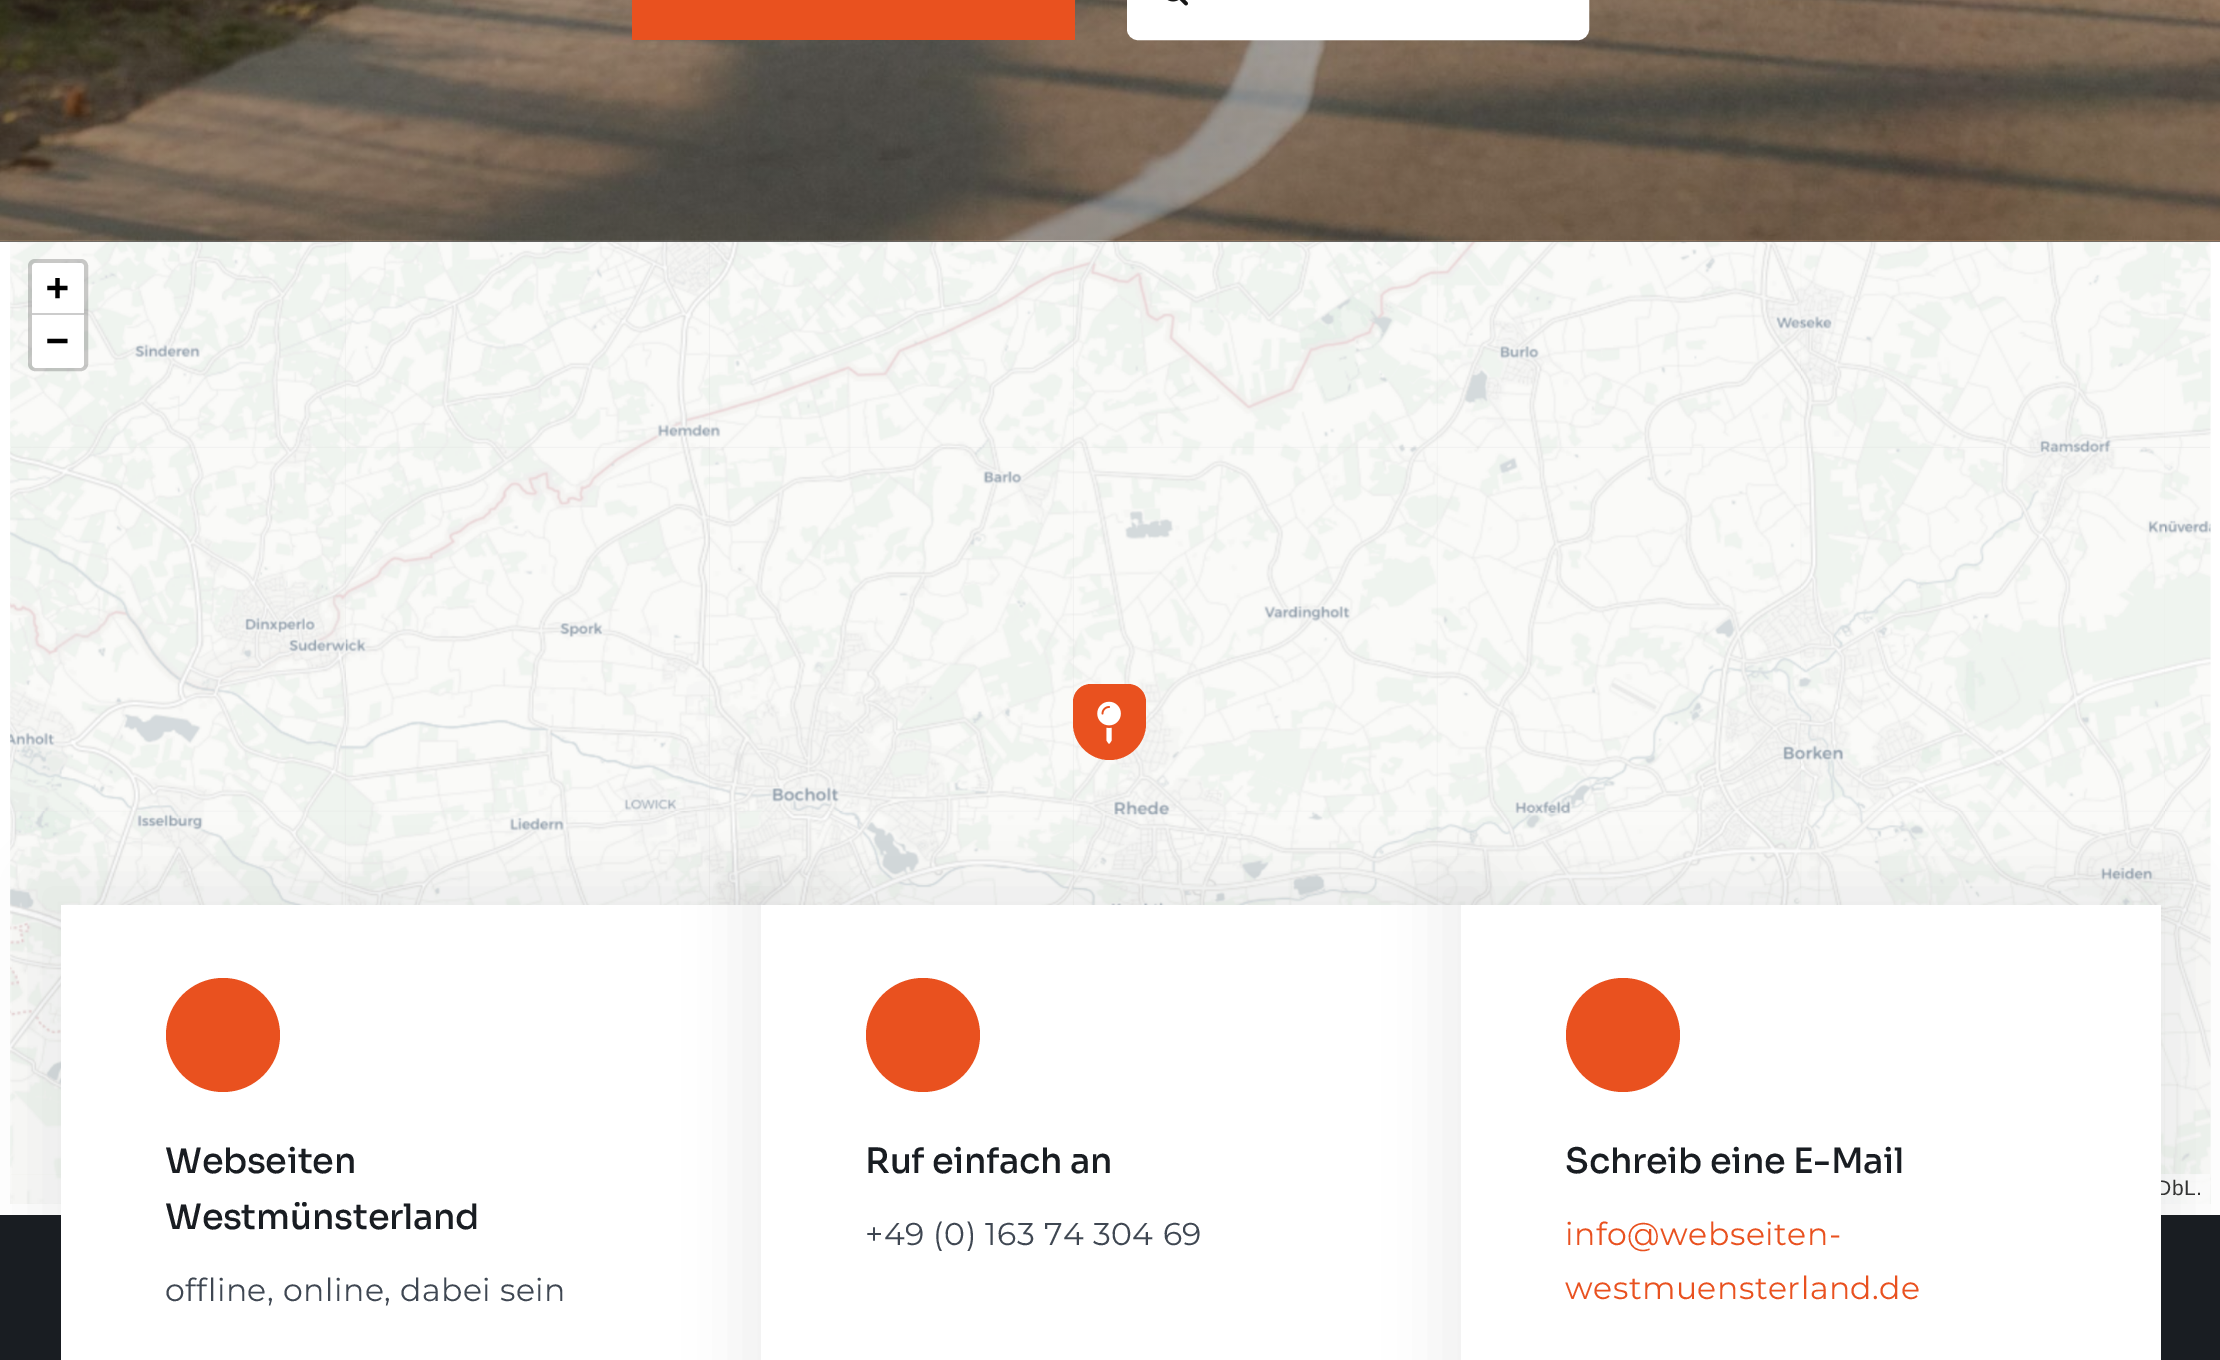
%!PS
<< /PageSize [2220 1360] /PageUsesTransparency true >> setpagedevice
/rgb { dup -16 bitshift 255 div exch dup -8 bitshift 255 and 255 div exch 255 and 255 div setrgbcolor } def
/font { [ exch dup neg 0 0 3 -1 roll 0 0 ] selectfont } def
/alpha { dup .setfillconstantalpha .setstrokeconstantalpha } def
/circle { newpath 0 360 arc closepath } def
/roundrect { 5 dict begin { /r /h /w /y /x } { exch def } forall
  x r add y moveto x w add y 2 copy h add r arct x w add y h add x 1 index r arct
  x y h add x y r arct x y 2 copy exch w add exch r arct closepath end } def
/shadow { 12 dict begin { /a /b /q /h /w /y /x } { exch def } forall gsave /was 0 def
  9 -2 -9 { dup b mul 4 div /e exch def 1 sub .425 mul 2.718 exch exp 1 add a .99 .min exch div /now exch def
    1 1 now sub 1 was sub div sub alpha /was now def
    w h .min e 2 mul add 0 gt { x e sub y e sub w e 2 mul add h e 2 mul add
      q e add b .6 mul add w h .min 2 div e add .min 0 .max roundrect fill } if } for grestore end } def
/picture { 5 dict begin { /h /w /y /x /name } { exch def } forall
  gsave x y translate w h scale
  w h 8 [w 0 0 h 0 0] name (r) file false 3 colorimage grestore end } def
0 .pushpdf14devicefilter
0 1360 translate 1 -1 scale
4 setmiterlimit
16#FFFFFF rgb
0 0 2220 1360 rectfill
16#5D5D5D rgb
0 241 2220 1 rectfill
(pic1.raw) 0 0 2220 242 picture
16#E9511F rgb
632 0 443 40 rectfill
16#FFFFFF rgb
1128 -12 460 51 10 roundrect gsave fill grestore
2 setlinewidth
stroke
(pic2.raw) 1167 0 21 6 picture
16#DDDDDD rgb
11 242 2199 962 rectfill
(pic13.raw) 1073 447 365 365 picture
(pic20.raw) 1073 811 365 94 picture
(pic12.raw) 709 447 365 365 picture
(pic14.raw) 1437 447 364 365 picture
(pic6.raw) 1073 242 365 206 picture
(pic5.raw) 709 242 365 206 picture
(pic19.raw) 709 811 365 94 picture
(pic11.raw) 345 447 365 365 picture
(pic4.raw) 345 242 365 206 picture
(pic18.raw) 345 811 365 94 picture
(pic10.raw) 10 447 336 365 picture
(pic3.raw) 10 242 336 206 picture
(pic7.raw) 1437 242 364 206 picture
(pic15.raw) 1801 447 364 365 picture
(pic8.raw) 1801 242 364 206 picture
(pic9.raw) 2165 242 46 205 picture
(pic16.raw) 2165 447 46 365 picture
(pic17.raw) 10 811 336 364 picture
(pic21.raw) 1437 811 364 94 picture
(pic22.raw) 1801 811 364 364 picture
(pic23.raw) 2165 811 46 364 picture
(pic24.raw) 10 1175 51 29 picture
(pic25.raw) 2161 1175 4 29 picture
(pic26.raw) 2165 1175 46 29 picture
16#E9511F rgb
1091 684 moveto 1128 684 lineto 1138 684 1146 692 1146 702 curveto 1146 723.5 lineto 1146 743.5 1129.5 760 1109.5 760 curveto 1089.5 760 1073 743.5 1073 723.5 curveto 1073 702 lineto 1073 692 1081 684 1091 684 curveto closepath fill
(pic27.raw) 1097 701 24 43 picture
0.2 alpha
16#000000 rgb
4 setlinewidth
30 261 56 108 5 roundrect stroke
1 alpha
16#FFFFFF rgb
36 263 moveto 80 263 lineto 82 263 84 265 84 267 curveto 84 315 lineto 32 315 lineto 32 267 lineto 32 265 34 263 36 263 curveto closepath fill
16#CCCCCC rgb
32 313 52 2 rectfill
/DejaVuSansMono-Bold 38 font
16#000000 rgb
46 300 moveto 0.5 0 (+) ashow
16#FFFFFF rgb
32 315 moveto 84 315 lineto 84 364 lineto 84 366 82 368 80 368 curveto 36 368 lineto 34 368 32 366 32 364 curveto closepath fill
16#000000 rgb
46 353 moveto 0.5 0 (−) ashow
0.8 alpha
16#FFFFFF rgb
2161 1174 49 30 rectfill
/LiberationSans-Regular 21 font
1 alpha
16#333333 rgb
2156 1195 moveto 0.5 0 (DbL.) ashow
16#191D22 rgb
0 1215 2220 145 rectfill
16#1A1E23 rgb
35 879 753 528 0 30.5 0.05 shadow
16#FFFFFF rgb
61 905 700 455 rectfill
16#E9511F rgb
223 1035 57 circle fill
/Sora-Medium 35 font
16#191D22 rgb
165 1173 moveto -0.3 0 (Webseiten) ashow
165 1229 moveto -0.3 0 (Westmünsterland) ashow
/Montserrat-Thin 31.5 font
16#3F4752 rgb
165 1301 moveto 0.5 0 (offline, online, dabei sein) ashow
16#1A1E23 rgb
735 879 753 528 0 30.5 0.05 shadow
16#FFFFFF rgb
761 905 700 455 rectfill
16#E9511F rgb
923 1035 57 circle fill
/Sora-Medium 35 font
16#191D22 rgb
865 1173 moveto -0.3 0 (Ruf einfach an) ashow
/Montserrat-Thin 31.5 font
16#3F4752 rgb
865 1245 moveto 0.5 0 (+49 \(0\) 163 74 304 69) ashow
16#1A1E23 rgb
1435 879 753 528 0 30.5 0.05 shadow
16#FFFFFF rgb
1461 905 700 455 rectfill
16#E9511F rgb
1623 1035 57 circle fill
/Sora-Medium 35 font
16#191D22 rgb
1565 1173 moveto -0.3 0 (Schreib eine E-Mail) ashow
/Montserrat-Thin 31.5 font
16#E9511F rgb
1565 1245 moveto 0.5 0 (info@webseiten-) ashow
1565 1299 moveto 0.5 0 (westmuensterland.de) ashow
.poppdf14devicefilter showpage
